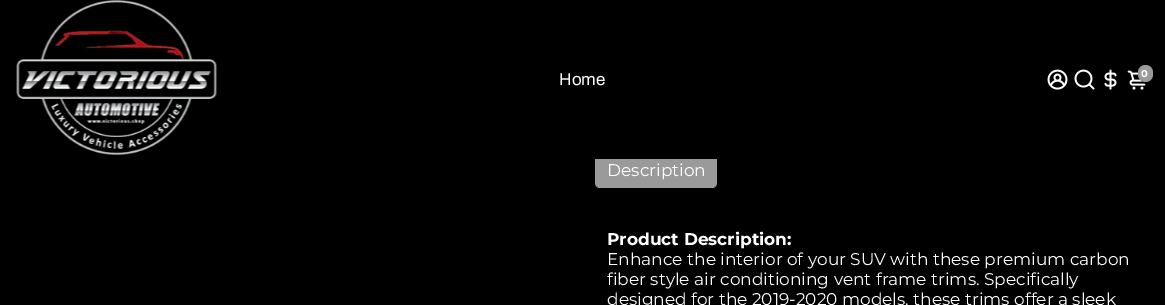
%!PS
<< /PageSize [1165 305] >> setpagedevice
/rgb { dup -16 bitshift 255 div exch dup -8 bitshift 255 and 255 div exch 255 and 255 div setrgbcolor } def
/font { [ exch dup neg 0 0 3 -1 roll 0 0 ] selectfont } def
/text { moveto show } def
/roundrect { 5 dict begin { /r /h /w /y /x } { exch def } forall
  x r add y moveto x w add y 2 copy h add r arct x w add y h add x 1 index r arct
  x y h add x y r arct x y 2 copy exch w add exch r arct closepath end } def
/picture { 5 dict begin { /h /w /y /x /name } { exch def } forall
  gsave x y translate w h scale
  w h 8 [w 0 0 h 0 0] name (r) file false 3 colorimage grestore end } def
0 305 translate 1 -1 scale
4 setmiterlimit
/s1 { /Archivo-Regular 17 font 16#FFFFFF rgb } def
/s2 { /Montserrat-Bold 10 font 16#FFFFFF rgb } def
/s3 { /Montserrat-Regular 17 font 16#FFFFFF rgb } def
/s4 { /Montserrat-Bold 17 font 16#FFFFFF rgb } def
16#000000 rgb
0 0 1165 305 rectfill
16#9A9A9A rgb
595 152 122 36 5 roundrect fill
16#000000 rgb
595 152 122 7 rectfill
(pic1.raw) 16 0 201 155 picture
s1
(Home) 559 85 text
(pic2.raw) 1047 69 21 21 picture
(pic3.raw) 1074 69 21 21 picture
(pic4.raw) 1104 69 13 21 picture
(pic5.raw) 1127 70 19 20 picture
16#9A9A9A rgb
1138 65 15 17 7.5 roundrect fill
s2
(0) 1141 77 text
s3
(Description) 607 176 text
s4
(Product Description:) 607 245 text
s3
(Enhance the interior of your SUV with these premium carbon) 607 265 text
(fiber style air conditioning vent frame trims. Specifically) 607 285 text
(designed for the 2019-2020 models, these trims offer a sleek) 607 305 text
showpage
